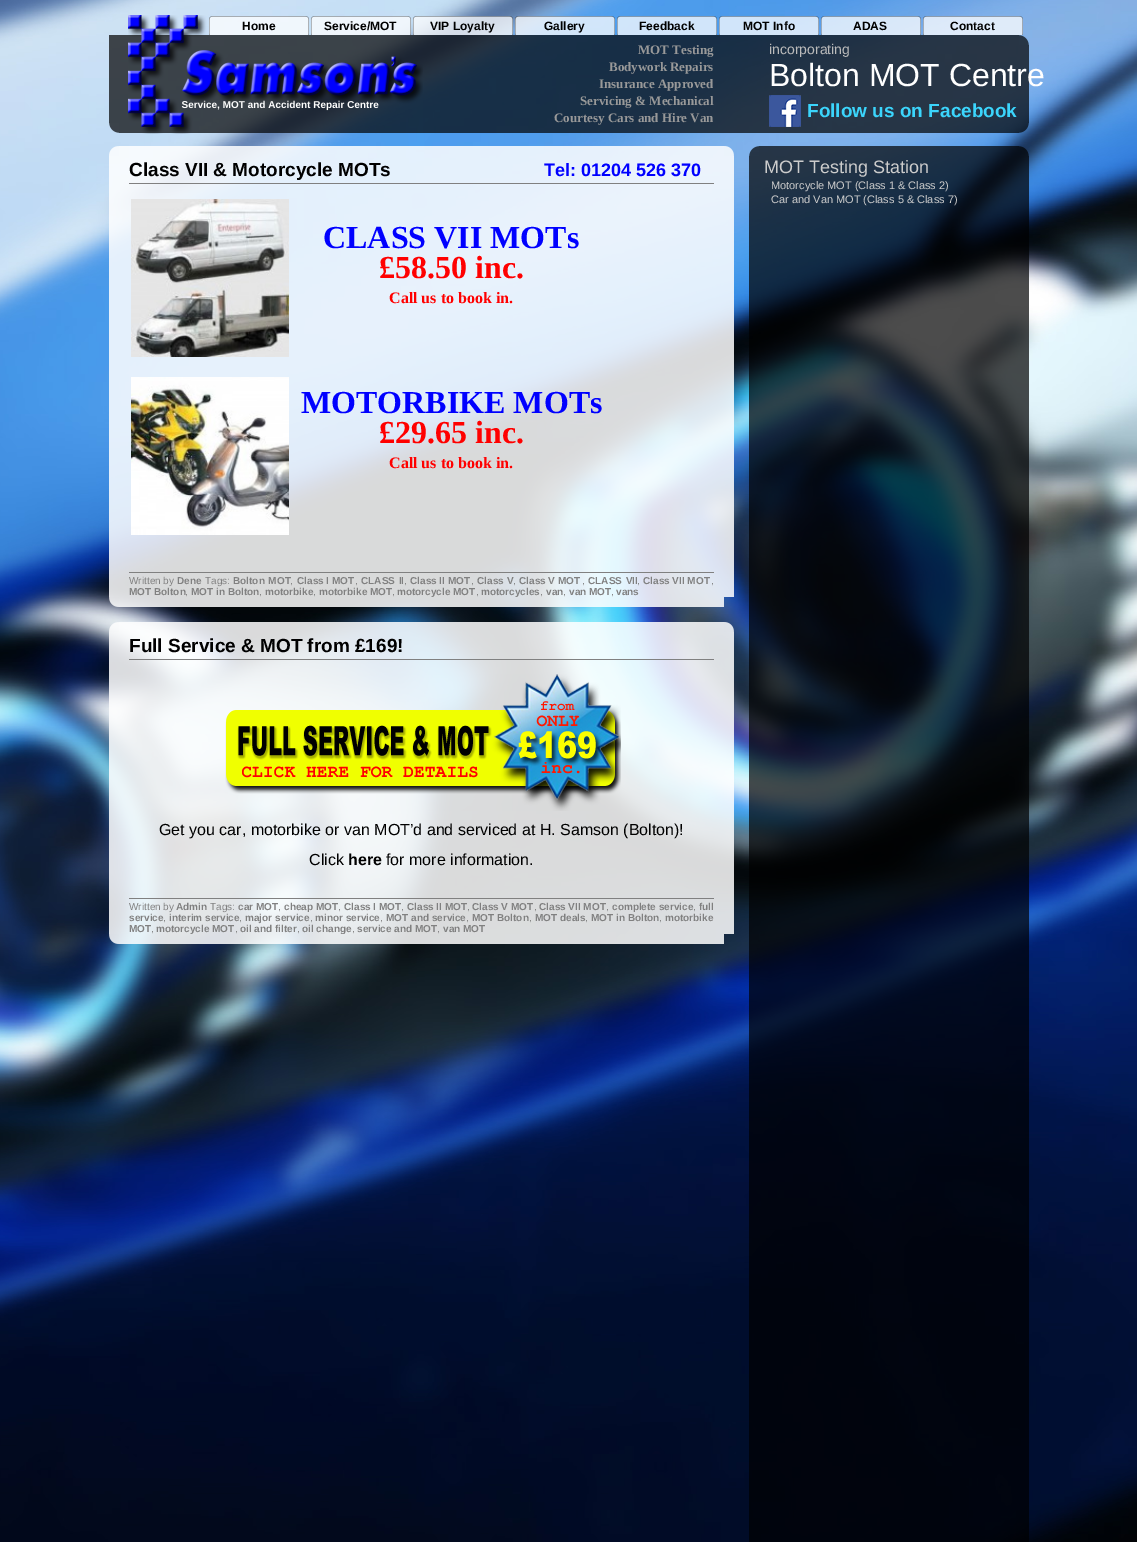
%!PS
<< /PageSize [1137 1542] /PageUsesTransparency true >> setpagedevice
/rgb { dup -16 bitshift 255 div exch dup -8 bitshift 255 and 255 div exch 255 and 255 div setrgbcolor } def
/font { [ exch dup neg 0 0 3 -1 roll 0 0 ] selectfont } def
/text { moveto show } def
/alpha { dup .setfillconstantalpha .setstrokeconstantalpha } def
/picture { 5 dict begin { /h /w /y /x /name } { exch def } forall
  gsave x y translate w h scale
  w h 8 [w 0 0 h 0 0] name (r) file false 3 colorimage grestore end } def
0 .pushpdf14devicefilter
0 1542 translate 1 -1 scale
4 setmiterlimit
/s1 { /LiberationSans-Bold 10 font 16#FFFFFF rgb } def
/s2 { /LiberationSans-Bold 12 font 16#000000 rgb } def
/s3 { /LiberationSerif-Bold 13 font 16#999999 rgb } def
/s4 { /LiberationSans-Regular 14 font 16#BBBBBB rgb } def
/s5 { /LiberationSans-Regular 32 font 16#FFFFFF rgb } def
/s6 { /LiberationSans-Bold 19 font 16#3BD5FC rgb } def
/s7 { /LiberationSans-Bold 19 font 16#000000 rgb } def
/s8 { /LiberationSans-Bold 18 font 16#0000FF rgb } def
/s9 { /LiberationSerif-Bold 32 font 16#0000FF rgb } def
/s10 { /LiberationSerif-Bold 32 font 16#FF0000 rgb } def
/s11 { /LiberationSerif-Bold 16 font 16#FF0000 rgb } def
/s12 { /LiberationSans-Regular 10 font 16#808080 rgb } def
/s13 { /LiberationSans-Bold 10 font 16#808080 rgb } def
/s14 { /LiberationSans-Regular 16 font 16#000000 rgb } def
/s15 { /LiberationSans-Bold 16 font 16#000000 rgb } def
/s16 { /LiberationSans-Regular 18 font 16#CCCCCC rgb } def
/s17 { /LiberationSans-Regular 11 font 16#CCCCCC rgb } def
16#FFFFFF rgb
0 0 1137 1542 rectfill
(pic1.raw) 0 0 1137 1542 picture
0.7 alpha
16#000000 rgb
109 35 910 10 rectfill
109 45 920 78 rectfill
1 alpha
s1
(Service, MOT and Accident Repair Centre) 182 108 text
0.7 alpha
16#000000 rgb
119 123 900 10 rectfill
1 alpha
(pic11.raw) 128 15 295 119 picture
(pic2.raw) 209 16 100 19 picture
s2
(Home) 242 30 text
(pic3.raw) 311 16 100 19 picture
(Service/MOT) 324 30 text
(pic4.raw) 413 16 100 19 picture
(VIP Loyalty) 430 30 text
(pic5.raw) 515 16 100 19 picture
(Gallery) 544 30 text
(pic6.raw) 617 16 100 19 picture
(Feedback) 639 30 text
(pic7.raw) 719 16 100 19 picture
(MOT Info) 743 30 text
(pic8.raw) 821 16 100 19 picture
(ADAS) 853 30 text
(pic9.raw) 923 16 100 19 picture
(Contact) 950 30 text
(pic10.raw) 1019 35 10 10 picture
s3
(MOT Testing) 638 54 text
(Bodywork Repairs) 609 71 text
(Insurance Approved) 599 88 text
(Servicing & Mechanical) 580 105 text
(Courtesy Cars and Hire Van) 554 122 text
s4
(incorporating) 769 54 text
s5
(Bolton MOT Centre) 769 86 text
(pic12.raw) 769 95 32 32 picture
s6
(Follow us on Facebook) 807 117 text
(pic13.raw) 109 123 10 10 picture
(pic14.raw) 1019 123 10 10 picture
(pic15.raw) 109 146 10 10 picture
0.85 alpha
16#FFFFFF rgb
119 146 605 10 rectfill
1 alpha
(pic16.raw) 724 146 10 10 picture
0.85 alpha
109 156 625 441 rectfill
1 alpha
16#808080 rgb
129 183 585 1 rectfill
s7
(Class VII & Motorcycle MOTs) 129 176 text
s8
(Tel: 01204 526 370) 544 176 text
(pic17.raw) 131 199 158 158 picture
s9
(CLASS VII MOTs) 323 248 text
s10
(£58.50 inc.) 379 278 text
s11
(Call us to book in.) 389 303 text
(pic18.raw) 131 377 158 158 picture
s9
(MOTORBIKE MOTs) 301 413 text
s10
(£29.65 inc.) 379 443 text
s11
(Call us to book in.) 389 468 text
16#808080 rgb
129 572 585 1 rectfill
s12
(Written by) 129 584 text
s13
(Dene) 177 584 text
s12
(Tags:) 205 584 text
/LiberationSans-Bold 10 font
233 584 moveto 1 0 32 (Bolton MOT) widthshow
s12
(,) 290 584 text
s13
(Class I MOT) 297 584 text
s12
(,) 355 584 text
/LiberationSans-Bold 10 font
361 584 moveto 1 0 32 (CLASS II) widthshow
s12
(,) 404 584 text
s13
(Class II MOT) 410 584 text
s12
(,) 471 584 text
/LiberationSans-Bold 10 font
477 584 moveto 1 0 32 (Class V) widthshow
s12
(,) 513 584 text
s13
(Class V MOT) 519 584 text
s12
(,) 582 584 text
/LiberationSans-Bold 10 font
588 584 moveto 1 0 32 (CLASS VII) widthshow
s12
(,) 637 584 text
s13
(Class VII MOT) 643 584 text
s12
(,) 711 584 text
s13
(MOT Bolton) 129 595 text
s12
(,) 185 595 text
s13
(MOT in Bolton) 191 595 text
s12
(,) 259 595 text
s13
(motorbike) 265 595 text
s12
(,) 313 595 text
s13
(motorbike MOT) 319 595 text
s12
(,) 392 595 text
s13
(motorcycle MOT) 397 595 text
s12
(,) 476 595 text
s13
(motorcycles) 481 595 text
s12
(,) 540 595 text
s13
(van) 546 595 text
s12
(,) 563 595 text
s13
(van MOT) 569 595 text
s12
(,) 611 595 text
s13
(vans) 616 595 text
(pic19.raw) 109 597 10 10 picture
0.85 alpha
16#FFFFFF rgb
119 597 605 10 rectfill
1 alpha
(pic20.raw) 109 622 10 10 picture
0.85 alpha
119 622 605 10 rectfill
1 alpha
(pic21.raw) 724 622 10 10 picture
0.85 alpha
109 632 625 302 rectfill
1 alpha
16#808080 rgb
129 659 585 1 rectfill
s7
(Full Service & MOT from £169!) 129 652 text
(pic22.raw) 225 674 396 137 picture
s14
(Get you car, motorbike or van MOT’d and serviced at H. Samson \(Bolton\)!) 159 835 text
(Click) 309 865 text
s15
(here) 348 865 text
s14
(for more information.) 386 865 text
16#808080 rgb
129 898 585 1 rectfill
s12
(Written by) 129 910 text
s13
(Admin) 176 910 text
s12
(Tags:) 210 910 text
s13
(car MOT) 238 910 text
s12
(,) 278 910 text
s13
(cheap MOT) 284 910 text
s12
(,) 338 910 text
s13
(Class I MOT) 344 910 text
s12
(,) 401 910 text
s13
(Class II MOT) 407 910 text
s12
(,) 467 910 text
s13
(Class V MOT) 472 910 text
s12
(,) 534 910 text
s13
(Class VII MOT) 539 910 text
s12
(,) 606 910 text
s13
(complete service) 612 910 text
s12
(,) 693 910 text
s13
(full) 699 910 text
(service) 129 921 text
s12
(,) 163 921 text
s13
(interim service) 169 921 text
s12
(,) 239 921 text
s13
(major service) 245 921 text
s12
(,) 310 921 text
s13
(minor service) 315 921 text
s12
(,) 380 921 text
s13
(MOT and service) 386 921 text
s12
(,) 466 921 text
s13
(MOT Bolton) 472 921 text
s12
(,) 529 921 text
s13
(MOT deals) 535 921 text
s12
(,) 585 921 text
s13
(MOT in Bolton) 591 921 text
s12
(,) 659 921 text
s13
(motorbike) 665 921 text
(MOT) 129 932 text
s12
(,) 151 932 text
s13
(motorcycle MOT) 156 932 text
s12
(,) 235 932 text
s13
(oil and filter) 240 932 text
s12
(,) 297 932 text
s13
(oil change) 302 932 text
s12
(,) 352 932 text
s13
(service and MOT) 357 932 text
s12
(,) 437 932 text
s13
(van MOT) 443 932 text
(pic23.raw) 109 934 10 10 picture
0.85 alpha
16#FFFFFF rgb
119 934 605 10 rectfill
1 alpha
(pic24.raw) 749 146 10 10 picture
0.7 alpha
16#000000 rgb
759 146 260 10 rectfill
1 alpha
(pic25.raw) 1019 146 10 10 picture
0.7 alpha
749 156 280 1386 rectfill
1 alpha
s16
(MOT Testing Station) 764 173 text
s17
(Motorcycle MOT \(Class 1 & Class 2\)) 771 189 text
(Car and Van MOT \(Class 5 & Class 7\)) 771 203 text
.poppdf14devicefilter showpage
